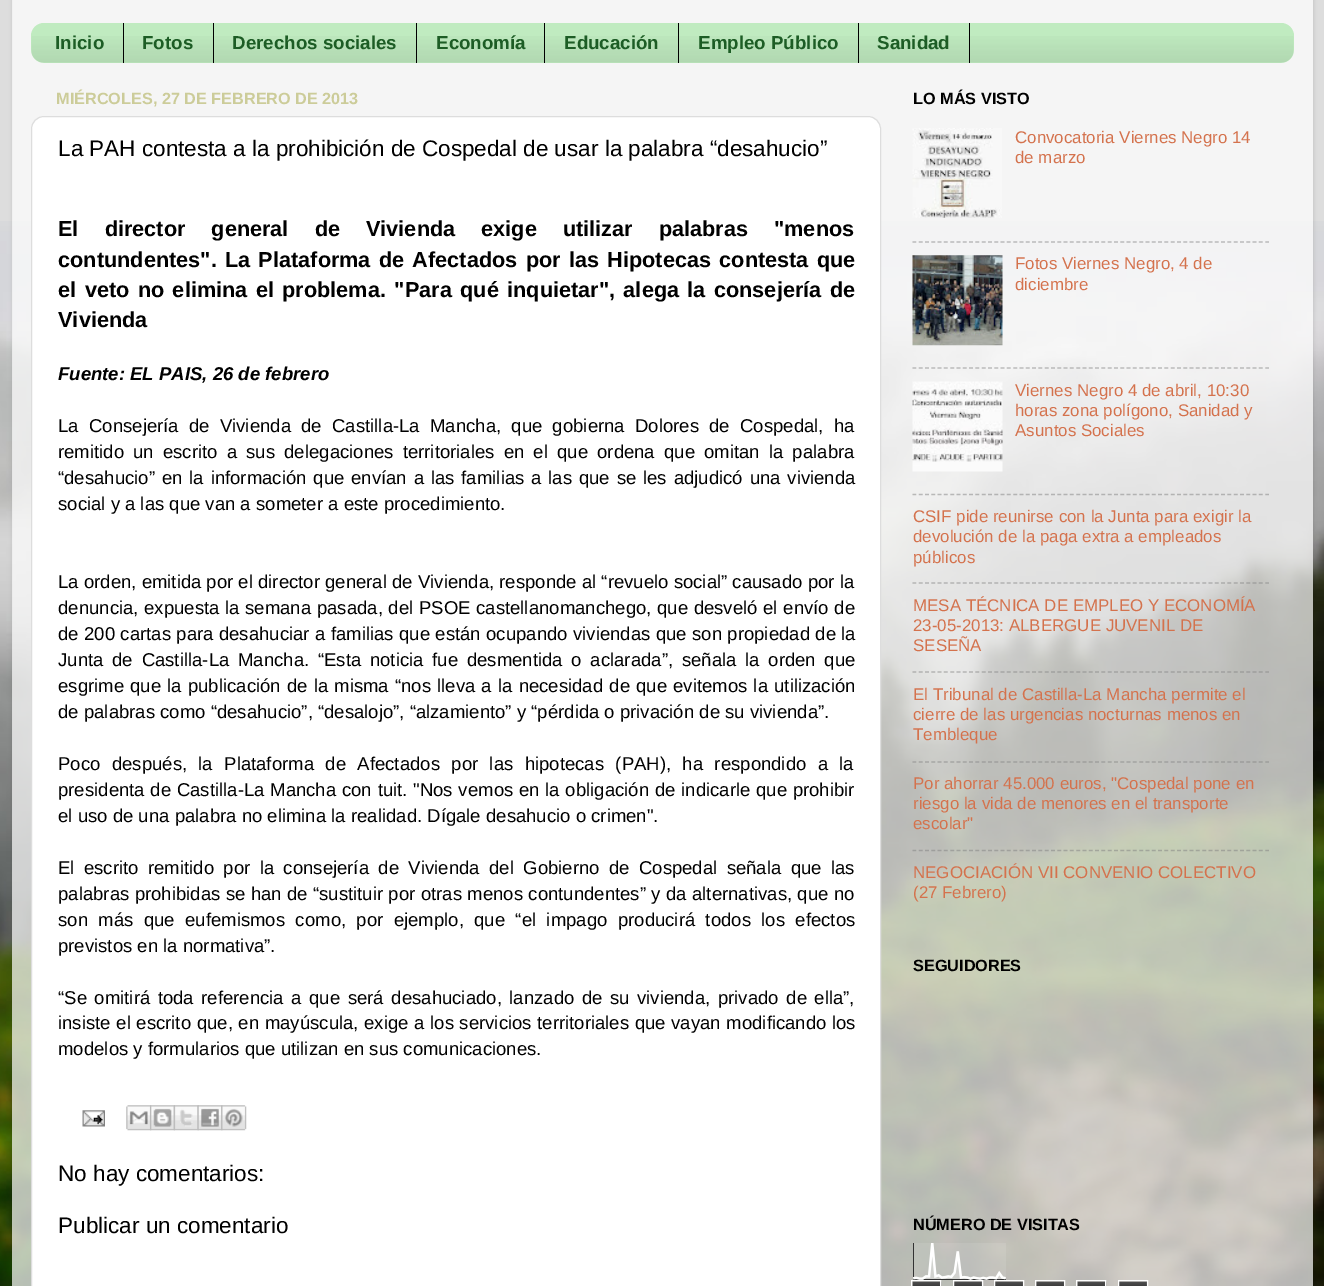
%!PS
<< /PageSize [1324 1286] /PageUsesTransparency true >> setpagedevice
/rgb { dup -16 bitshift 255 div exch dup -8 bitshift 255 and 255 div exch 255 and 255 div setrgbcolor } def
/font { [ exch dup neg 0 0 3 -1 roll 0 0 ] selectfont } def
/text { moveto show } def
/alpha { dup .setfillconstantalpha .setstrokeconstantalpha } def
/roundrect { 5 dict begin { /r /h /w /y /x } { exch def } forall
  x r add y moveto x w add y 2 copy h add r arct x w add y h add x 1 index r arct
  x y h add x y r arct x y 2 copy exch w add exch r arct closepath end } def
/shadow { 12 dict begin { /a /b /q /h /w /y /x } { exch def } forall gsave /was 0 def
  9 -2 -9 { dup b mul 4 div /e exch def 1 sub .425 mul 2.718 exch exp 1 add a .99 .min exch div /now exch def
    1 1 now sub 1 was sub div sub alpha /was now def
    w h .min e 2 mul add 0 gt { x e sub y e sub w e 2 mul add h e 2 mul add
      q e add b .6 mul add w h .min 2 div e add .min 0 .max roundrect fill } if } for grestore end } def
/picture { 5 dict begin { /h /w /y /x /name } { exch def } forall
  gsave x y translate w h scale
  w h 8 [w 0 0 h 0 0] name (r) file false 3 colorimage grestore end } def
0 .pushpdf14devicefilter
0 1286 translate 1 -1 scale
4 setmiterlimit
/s1 { /LiberationSans-Bold 18.75 font 16#1D5D25 rgb } def
/s2 { /LiberationSans-Bold 16.25 font 16#CCCC99 rgb } def
/s3 { /LiberationSans-Regular 22.5 font 16#000000 rgb } def
/s4 { /LiberationSans-Bold 21.7 font 16#000000 rgb } def
/s5 { /LiberationSans-BoldItalic 18.55 font 16#000000 rgb } def
/s6 { /LiberationSans-Regular 18.55 font 16#000000 rgb } def
/s7 { /LiberationSans-Bold 16.25 font 16#000000 rgb } def
/s8 { /LiberationSans-Regular 16.9 font 16#D4724D rgb } def
16#DDDDDD rgb
0 0 1324 1286 rectfill
(pic1.raw) 0 221 1324 1065 picture
gsave
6 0 moveto 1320 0 lineto 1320 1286 lineto 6 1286 lineto closepath 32 -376 moveto 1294 -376 lineto 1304.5 -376 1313 -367.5 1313 -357 curveto 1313 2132 lineto 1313 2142.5 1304.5 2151 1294 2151 curveto 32 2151 lineto 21.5 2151 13 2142.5 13 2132 curveto 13 -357 lineto 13 -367.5 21.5 -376 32 -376 curveto closepath eoclip newpath
16#000000 rgb
13 -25 1300 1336 19 2 0.15 shadow
grestore
0.7 alpha
16#FFFFFF rgb
12 0 1301 1286 rectfill
1 alpha
16#C0EBC0 rgb
31 23 1263 40 13 roundrect fill
(pic2.raw) 31 36 1263 27 picture
16#000000 rgb
123 23 1 40 rectfill
s1
(Inicio) 55 49 text
16#000000 rgb
213 23 1 40 rectfill
s1
(Fotos) 142 49 text
16#000000 rgb
416 23 1 40 rectfill
s1
(Derechos sociales) 232 49 text
16#000000 rgb
544 23 1 40 rectfill
s1
(Economía) 436 49 text
16#000000 rgb
678 23 1 40 rectfill
s1
(Educación) 564 49 text
16#000000 rgb
858 23 1 40 rectfill
s1
(Empleo Público) 698 49 text
16#000000 rgb
969 23 1 40 rectfill
s1
(Sanidad) 877 49 text
s2
(MIÉRCOLES, 27 DE FEBRERO DE 2013) 56 104 text
16#FFFFFF rgb
31.5 116.5 849 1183 12.5 roundrect gsave fill grestore
16#DDDDDD rgb
stroke
s3
(La PAH contesta a la prohibición de Cospedal de usar la palabra “desahucio”) 58 156 text
/LiberationSans-Bold 21.7 font
58 236 moveto 20 0 32 (El director general de Vivienda exige utilizar palabras "menos) widthshow
58 267 moveto 2.25 0 32 (contundentes". La Plataforma de Afectados por las Hipotecas contesta que) widthshow
58 297 moveto 2.4 0 32 (el veto no elimina el problema. "Para qué inquietar", alega la consejería de) widthshow
(Vivienda) 58 327 text
s5
(Fuente: EL PAIS, 26 de febrero) 58 380 text
/LiberationSans-Regular 18.55 font
58 432 moveto 5.1 0 32 (La Consejería de Vivienda de Castilla-La Mancha, que gobierna Dolores de Cospedal, ha) widthshow
58 458 moveto 4 0 32 (remitido un escrito a sus delegaciones territoriales en el que ordena que omitan la palabra) widthshow
58 484 moveto 1.7 0 32 (“desahucio” en la información que envían a las familias a las que se les adjudicó una vivienda) widthshow
(social y a las que van a someter a este procedimiento.) 58 510 text
(La orden, emitida por el director general de Vivienda, responde al “revuelo social” causado por la) 58 588 text
58 614 moveto 0.5 0 32 (denuncia, expuesta la semana pasada, del PSOE castellanomanchego, que desveló el envío de) widthshow
58 640 moveto 0.25 0 32 (de 200 cartas para desahuciar a familias que están ocupando viviendas que son propiedad de la) widthshow
58 666 moveto 3.6 0 32 (Junta de Castilla-La Mancha. “Esta noticia fue desmentida o aclarada”, señala la orden que) widthshow
58 692 moveto 1 0 32 (esgrime que la publicación de la misma “nos lleva a la necesidad de que evitemos la utilización) widthshow
(de palabras como “desahucio”, “desalojo”, “alzamiento” y “pérdida o privación de su vivienda”.) 58 718 text
58 770 moveto 6.25 0 32 (Poco después, la Plataforma de Afectados por las hipotecas \(PAH\), ha respondido a la) widthshow
58 796 moveto 0.6 0 32 (presidenta de Castilla-La Mancha con tuit. "Nos vemos en la obligación de indicarle que prohibir) widthshow
(el uso de una palabra no elimina la realidad. Dígale desahucio o crimen".) 58 822 text
58 874 moveto 4.25 0 32 (El escrito remitido por la consejería de Vivienda del Gobierno de Cospedal señala que las) widthshow
58 900 moveto 0.25 0 32 (palabras prohibidas se han de “sustituir por otras menos contundentes” y da alternativas, que no) widthshow
58 926 moveto 5.25 0 32 (son más que eufemismos como, por ejemplo, que “el impago producirá todos los efectos) widthshow
(previstos en la normativa”.) 58 952 text
58 1004 moveto 2.4 0 32 (“Se omitirá toda referencia a que será desahuciado, lanzado de su vivienda, privado de ella”,) widthshow
58 1029 moveto 0.5 0 32 (insiste el escrito que, en mayúscula, exige a los servicios territoriales que vayan modificando los) widthshow
(modelos y formularios que utilizan en sus comunicaciones.) 58 1055 text
(pic3.raw) 82 1110 23 17 picture
(pic4.raw) 126 1105 26 26 picture
(pic5.raw) 150 1105 25 26 picture
(pic6.raw) 173 1105 26 26 picture
(pic7.raw) 197 1105 26 26 picture
(pic8.raw) 221 1105 26 26 picture
s3
(No hay comentarios:) 58 1181 text
(Publicar un comentario) 58 1233 text
s7
(LO MÁS VISTO) 913 104 text
(pic9.raw) 912 128 90 90 picture
s8
(Convocatoria Viernes Negro 14) 1015 143 text
(de marzo) 1015 163 text
16#B9B9BA rgb
1.2 setlinewidth
[3.75 2.55] 0 setdash
912.5 242 moveto 1269 242 lineto stroke
(pic10.raw) 912 255 91 91 picture
s8
(Fotos Viernes Negro, 4 de) 1015 269 text
(diciembre) 1015 290 text
0.5 alpha
16#808080 rgb
912.5 368 moveto 1269 368 lineto stroke
1 alpha
(pic11.raw) 912 381 91 91 picture
s8
(Viernes Negro 4 de abril, 10:30) 1015 396 text
(horas zona polígono, Sanidad y) 1015 416 text
(Asuntos Sociales) 1015 436 text
0.5 alpha
16#808080 rgb
912.5 494.5 moveto 1269 494.5 lineto stroke
1 alpha
s8
(CSIF pide reunirse con la Junta para exigir la) 913 522 text
(devolución de la paga extra a empleados) 913 542 text
(públicos) 913 563 text
0.5 alpha
16#808080 rgb
912.5 583 moveto 1269 583 lineto stroke
1 alpha
s8
(MESA TÉCNICA DE EMPLEO Y ECONOMÍA) 913 611 text
(23-05-2013: ALBERGUE JUVENIL DE) 913 631 text
(SESEÑA) 913 651 text
0.5 alpha
16#808080 rgb
912.5 672 moveto 1269 672 lineto stroke
1 alpha
s8
(El Tribunal de Castilla-La Mancha permite el) 913 700 text
(cierre de las urgencias nocturnas menos en) 913 720 text
(Tembleque) 913 740 text
0.5 alpha
16#808080 rgb
912.5 762 moveto 1269 762 lineto stroke
1 alpha
s8
(Por ahorrar 45.000 euros, "Cospedal pone en) 913 789 text
(riesgo la vida de menores en el transporte) 913 809 text
(escolar") 913 829 text
0.5 alpha
16#808080 rgb
912.5 850.5 moveto 1269 850.5 lineto stroke
1 alpha
s8
(NEGOCIACIÓN VII CONVENIO COLECTIVO) 913 878 text
(\(27 Febrero\)) 913 898 text
s7
(SEGUIDORES) 913 971 text
(NÚMERO DE VISITAS) 913 1230 text
(pic12.raw) 913 1243 93 37 picture
(pic13.raw) 912 1281 30 5 picture
16#FFFFFF rgb
1 setlinewidth
[] 0 setdash
911.5 1280.5 29 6 rectstroke
(pic14.raw) 954 1281 28 5 picture
953.5 1280.5 29 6 rectstroke
(pic15.raw) 995 1281 28 5 picture
994.5 1280.5 29 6 rectstroke
(pic16.raw) 1036 1281 28 5 picture
1035.5 1280.5 29 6 rectstroke
(pic17.raw) 1077 1281 30 5 picture
1076.5 1280.5 29 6 rectstroke
(pic18.raw) 1119 1281 28 5 picture
1118.5 1280.5 29 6 rectstroke
.poppdf14devicefilter showpage
